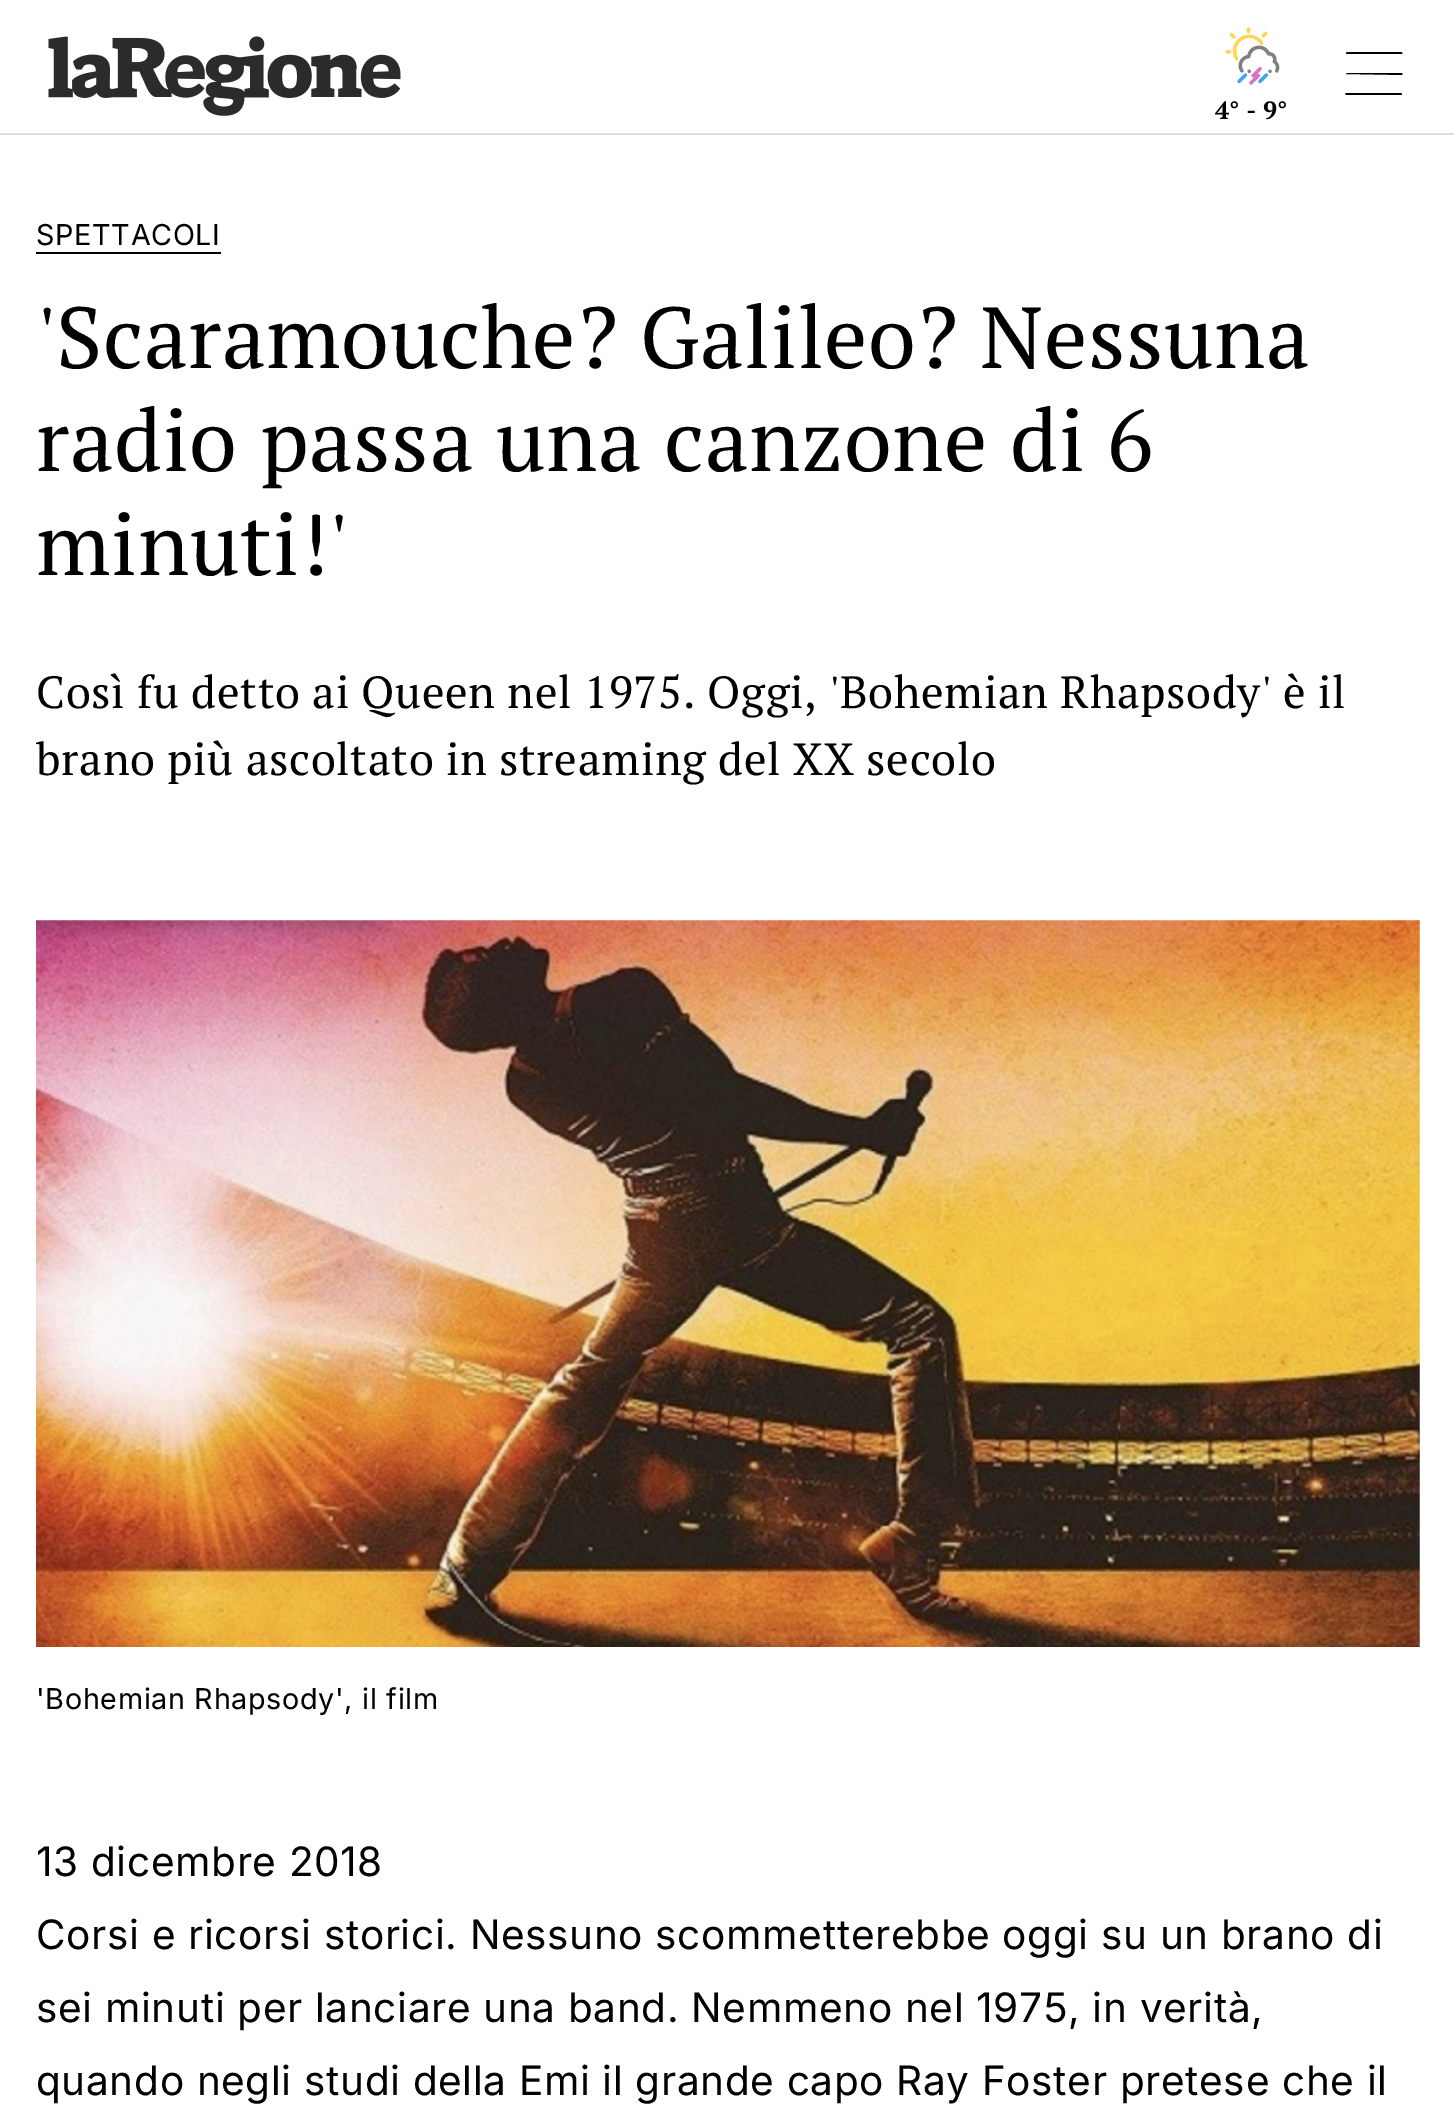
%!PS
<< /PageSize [1454 2127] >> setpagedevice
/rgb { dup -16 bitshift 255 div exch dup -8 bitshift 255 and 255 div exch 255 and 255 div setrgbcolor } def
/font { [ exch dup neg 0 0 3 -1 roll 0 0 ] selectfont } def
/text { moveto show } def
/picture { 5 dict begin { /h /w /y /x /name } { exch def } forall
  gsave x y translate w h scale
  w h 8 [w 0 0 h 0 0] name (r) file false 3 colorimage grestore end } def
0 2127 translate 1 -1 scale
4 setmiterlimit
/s1 { /PTSerif-Bold 25 font 16#000000 rgb } def
16#FFFFFF rgb
0 0 1454 2127 rectfill
16#DDDDDD rgb
0 133 1454 2 rectfill
(pic1.raw) 48 36 353 80 picture
16#000000 rgb
1346 53 moveto 1347 52 lineto 1401 52 lineto 1402 52 1403 54 1402 54 curveto 1346 54 lineto closepath 1346 74 moveto 1347 73 lineto 1401 73 lineto 1402 73 1403 74 1402 75 curveto closepath 1402 94 moveto 1402 95 lineto 1346 95 lineto 1345 94 1345 93 1347 93 curveto 1401 93 lineto closepath fill
(pic2.raw) 1225 27 55 58 picture
s1
(4° - 9°) 1215 119 text
/Inter-Regular 28.75 font
36 245 moveto 0.67 0 (SPETTACOLI) ashow
36 252 185 2 rectfill
/PTSerif-Regular 86.4 font
36 368 moveto 0.67 0 ('Scaramouche? Galileo? Nessuna) ashow
36 471 moveto 0.67 0 (radio passa una canzone di 6) ashow
36 575 moveto 0.67 0 (minuti!') ashow
/PTSerif-Regular 45 font
36 708 moveto 0.67 0 (Così fu detto ai Queen nel 1975. Oggi, 'Bohemian Rhapsody' è il) ashow
36 775 moveto 0.67 0 (brano più ascoltato in streaming del XX secolo) ashow
(pic3.raw) 36 920 1384 727 picture
/Inter-Regular 28.75 font
36 1709 moveto 0.67 0 ('Bohemian Rhapsody', il film) ashow
/Inter-Regular 40.5 font
36 1876 moveto 0.67 0 (13 dicembre 2018) ashow
36 1949 moveto 0.67 0 (Corsi e ricorsi storici. Nessuno scommetterebbe oggi su un brano di) ashow
36 2022 moveto 0.67 0 (sei minuti per lanciare una band. Nemmeno nel 1975, in verità,) ashow
36 2095 moveto 0.67 0 (quando negli studi della Emi il grande capo Ray Foster pretese che il) ashow
showpage
